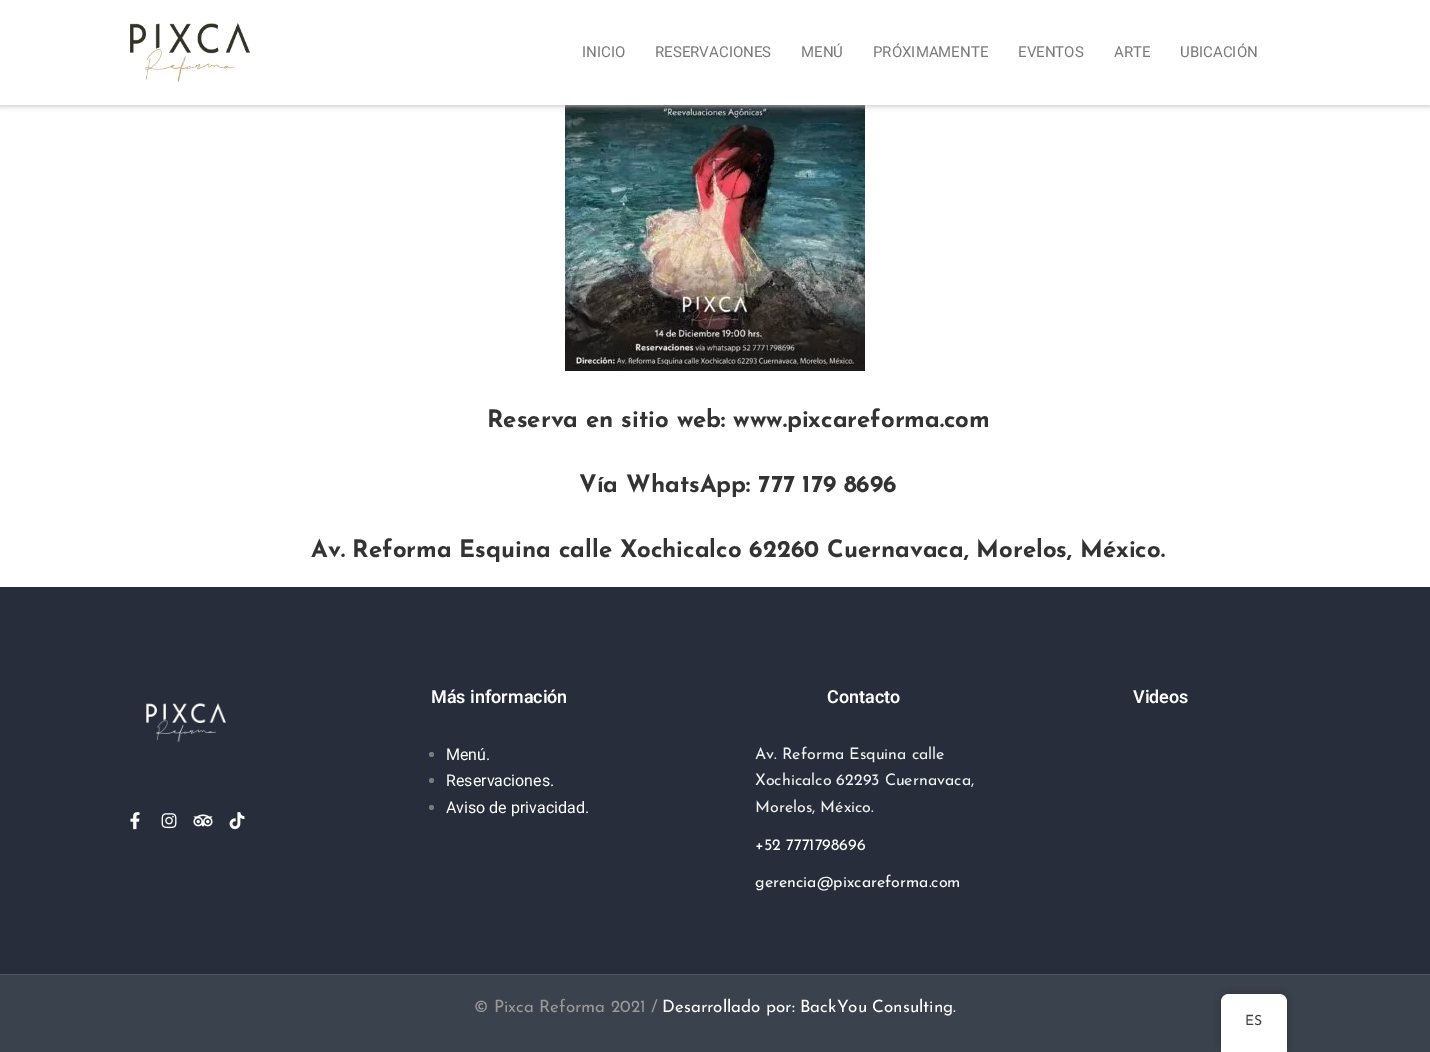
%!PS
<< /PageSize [1430 1052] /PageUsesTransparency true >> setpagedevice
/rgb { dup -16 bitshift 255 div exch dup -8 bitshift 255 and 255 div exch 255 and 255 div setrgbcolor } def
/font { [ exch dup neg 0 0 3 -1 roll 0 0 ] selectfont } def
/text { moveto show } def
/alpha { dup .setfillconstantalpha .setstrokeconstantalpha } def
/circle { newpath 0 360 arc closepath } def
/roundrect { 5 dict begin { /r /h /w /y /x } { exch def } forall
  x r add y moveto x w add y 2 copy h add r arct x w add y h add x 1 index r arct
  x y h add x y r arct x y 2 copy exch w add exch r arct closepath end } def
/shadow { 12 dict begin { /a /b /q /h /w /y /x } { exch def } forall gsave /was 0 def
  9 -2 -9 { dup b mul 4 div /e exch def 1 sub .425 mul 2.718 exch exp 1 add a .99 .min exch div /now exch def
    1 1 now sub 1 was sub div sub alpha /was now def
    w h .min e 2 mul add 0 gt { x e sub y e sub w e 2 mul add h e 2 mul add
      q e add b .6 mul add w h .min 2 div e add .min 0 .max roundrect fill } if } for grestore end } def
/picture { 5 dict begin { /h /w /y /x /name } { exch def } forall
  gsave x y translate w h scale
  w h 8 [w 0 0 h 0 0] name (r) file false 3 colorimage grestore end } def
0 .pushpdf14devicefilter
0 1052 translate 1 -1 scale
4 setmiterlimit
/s1 { /Roboto-Regular 15 font 16#7A7A7A rgb } def
/s2 { /JosefinSans-Bold 24 font 16#333333 rgb } def
/s3 { /Roboto-SemiBold 18 font 16#FFFFFF rgb } def
/s4 { /Roboto-Regular 16 font 16#FFFFFF rgb } def
/s5 { /JosefinSans-Regular 16 font 16#F2F2F2 rgb } def
/s6 { /JosefinSans-Regular 16 font 16#FFFFFF rgb } def
/s7 { /JosefinSans-Regular 17 font 16#999999 rgb } def
/s8 { /JosefinSans-Regular 17 font 16#FFFFFF rgb } def
/s9 { /JosefinSans-Regular 14 font 16#404040 rgb } def
16#FFFFFF rgb
0 0 1430 1052 rectfill
(pic2.raw) 565 105 300 266 picture
16#C5C5C5 rgb
0 1 1430 105 0 3 1 shadow
16#FFFFFF rgb
0 0 1430 105 rectfill
(pic1.raw) 130 23 120 59 picture
s1
(INICIO) 582 57 text
(RESERVACIONES) 655 57 text
(MENÚ) 801 57 text
(PRÓXIMAMENTE) 873 57 text
(EVENTOS) 1018 57 text
(ARTE) 1114 57 text
(UBICACIÓN) 1180 57 text
s2
(Reserva en sitio web: www.pixcareforma.com) 487 427 text
(Vía WhatsApp: 777 179 8696) 579 492 text
(Av. Reforma Esquina calle Xochicalco 62260 Cuernavaca, Morelos, México.) 311 557 text
16#272D3B rgb
0 587 1430 387 rectfill
(pic3.raw) 146 703 80 39 picture
(pic4.raw) 130 812 10 18 picture
(pic5.raw) 161 813 16 16 picture
(pic6.raw) 193 814 20 13 picture
(pic7.raw) 229 812 16 18 picture
s3
(Más información) 431 703 text
16#7A7A7A rgb
431.5 754.5 2.5 circle fill
s4
(Menú.) 446 760 text
16#7A7A7A rgb
431.5 780.5 2.5 circle fill
s4
(Reservaciones.) 446 786 text
16#7A7A7A rgb
431.5 807.5 2.5 circle fill
s4
(Aviso de privacidad.) 446 813 text
s3
(Contacto) 827 703 text
s5
(Av. Reforma Esquina calle) 755 759 text
(Xochicalco 62293 Cuernavaca,) 755 785 text
(Morelos, México.) 755 812 text
s6
(+52 7771798696) 755 850 text
(gerencia@pixcareforma.com) 755 887 text
s3
(Videos) 1133 703 text
16#3A424E rgb
0 975 1430 77 rectfill
16#4E5560 rgb
0 974 1430 1 rectfill
s7
(© Pixca Reforma 2021 /) 474 1012 text
s8
(Desarrollado por: BackYou Consulting.) 662 1012 text
16#000000 rgb
1221 994 66 58 8 4 0.25 shadow
16#FFFFFF rgb
1229 994 moveto 1279 994 lineto 1283.5 994 1287 997.5 1287 1002 curveto 1287 1052 lineto 1221 1052 lineto 1221 1002 lineto 1221 997.5 1224.5 994 1229 994 curveto closepath fill
s9
(ES) 1245 1025 text
.poppdf14devicefilter showpage
